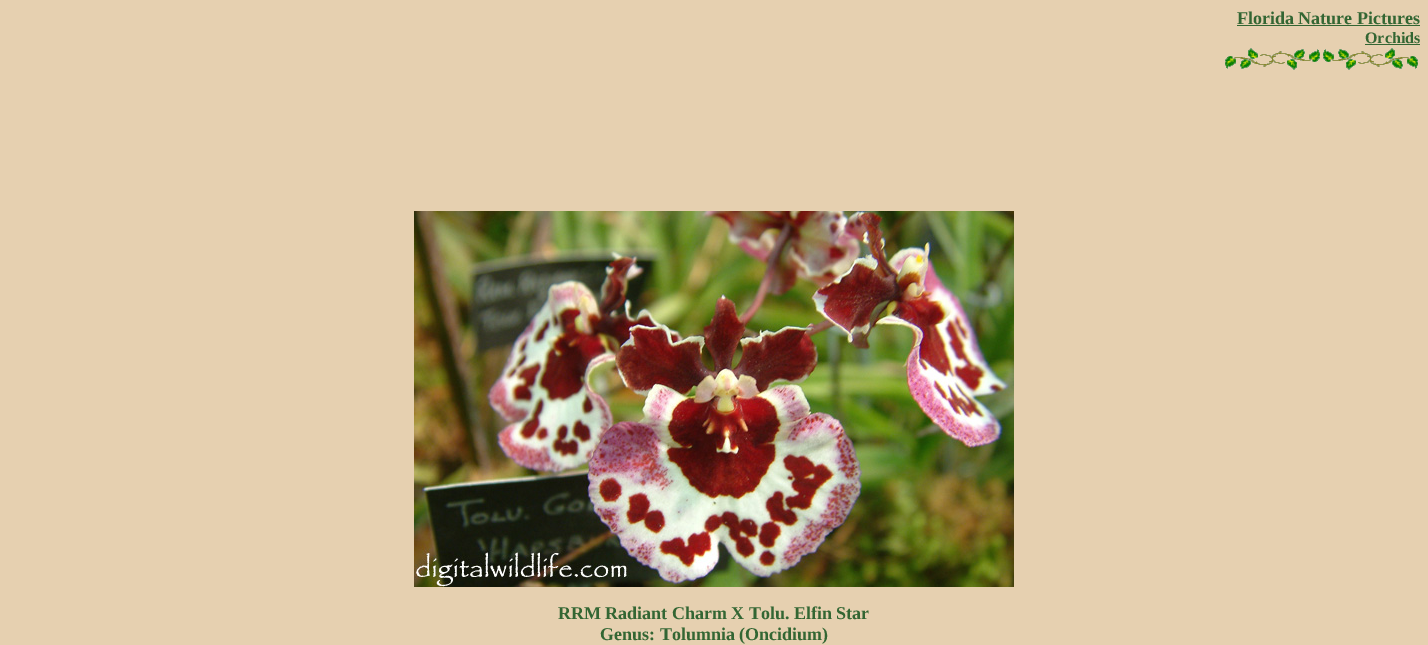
%!PS
<< /PageSize [1428 645] >> setpagedevice
/rgb { dup -16 bitshift 255 div exch dup -8 bitshift 255 and 255 div exch 255 and 255 div setrgbcolor } def
/font { [ exch dup neg 0 0 3 -1 roll 0 0 ] selectfont } def
/text { moveto show } def
/picture { 5 dict begin { /h /w /y /x /name } { exch def } forall
  gsave x y translate w h scale
  w h 8 [w 0 0 h 0 0] name (r) file false 3 colorimage grestore end } def
0 645 translate 1 -1 scale
4 setmiterlimit
/s1 { /LiberationSerif-Bold 18 font 16#336633 rgb } def
/s2 { /LiberationSerif-Bold 16 font 16#336633 rgb } def
16#E6D0B0 rgb
0 0 1428 645 rectfill
s1
(Florida Nature Pictures) 1237 24 text
1237 25 183 1 rectfill
s2
(Orchids) 1365 43 text
1365 44 55 1 rectfill
(pic1.raw) 1225 48 193 22 picture
(pic2.raw) 414 211 600 376 picture
s1
(RRM Radiant Charm X Tolu. Elfin Star) 558 619 text
(Genus: Tolumnia \(Oncidium\)) 600 640 text
showpage
